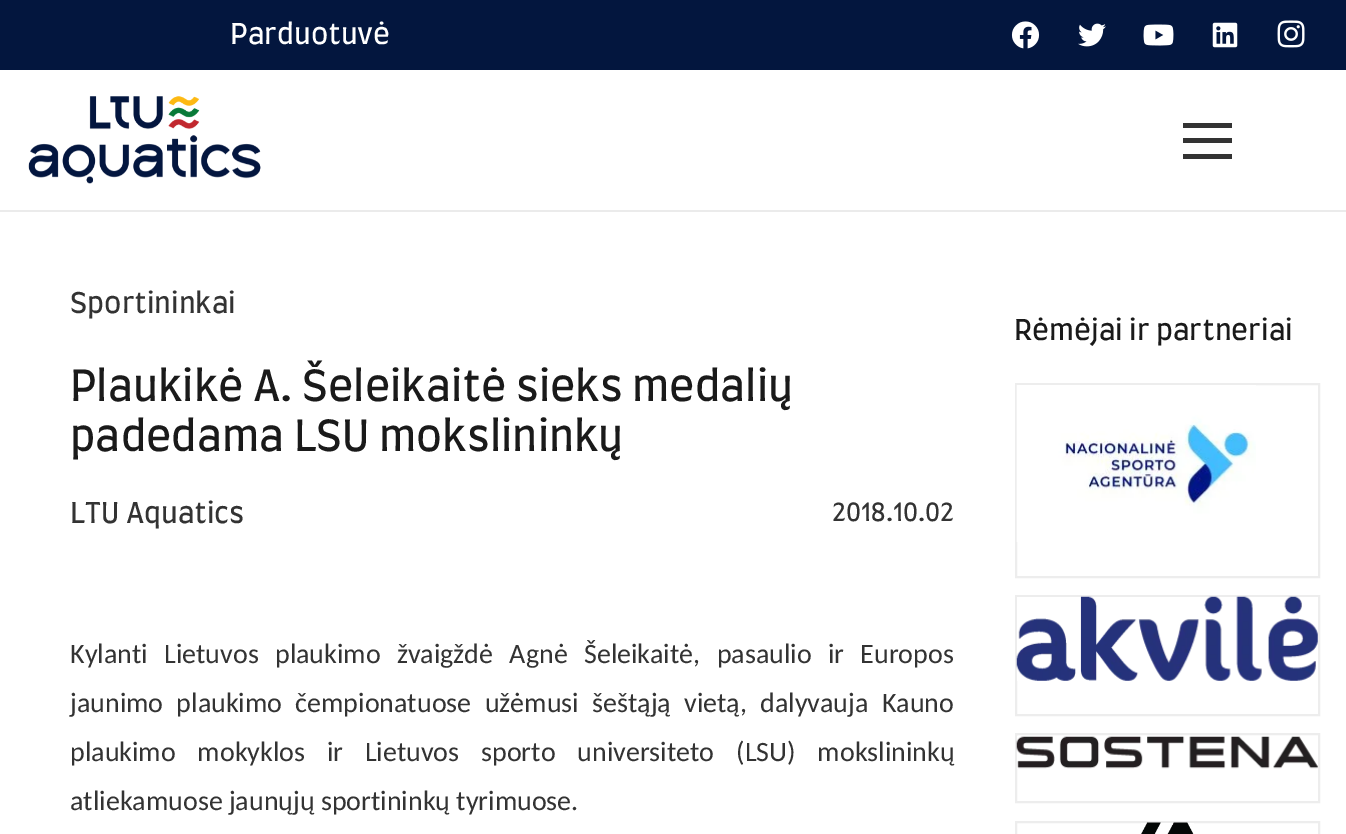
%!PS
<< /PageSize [1346 834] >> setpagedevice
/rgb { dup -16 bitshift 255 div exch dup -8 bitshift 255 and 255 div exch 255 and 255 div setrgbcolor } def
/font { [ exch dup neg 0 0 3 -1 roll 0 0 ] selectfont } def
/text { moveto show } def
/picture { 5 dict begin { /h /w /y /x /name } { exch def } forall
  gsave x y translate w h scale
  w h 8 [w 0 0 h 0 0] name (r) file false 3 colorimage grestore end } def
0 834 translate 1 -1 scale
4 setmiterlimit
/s1 { /Farro-Regular 28 font 16#FFFFFF rgb } def
/s2 { /Farro-Regular 28 font 16#333333 rgb } def
/s3 { /Farro-Regular 42 font 16#1A1A1A rgb } def
/s4 { /Farro-Regular 24.5 font 16#333333 rgb } def
/s5 { /Carlito-Regular 28 font 16#333333 rgb } def
/s6 { /Farro-Regular 28 font 16#1A1A1A rgb } def
16#FFFFFF rgb
0 0 1346 834 rectfill
16#03163E rgb
0 0 1346 70 rectfill
s1
(Parduotuvė) 230 44 text
(pic1.raw) 1011 21 29 28 picture
(pic2.raw) 1078 23 28 24 picture
(pic3.raw) 1143 24 31 22 picture
(pic4.raw) 1212 22 26 26 picture
(pic5.raw) 1277 20 28 28 picture
16#EBEBEB rgb
0 210 moveto 0 212 lineto 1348 212 lineto 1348 72 lineto 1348 210 lineto closepath fill
(pic6.raw) 28 96 233 88 picture
16#333333 rgb
1183 138 49 5 rectfill
1183 123 49 5 rectfill
1183 154 49 5 rectfill
(Sportininkai) 70 313 text
s3
(Plaukikė A. Šeleikaitė sieks medalių) 70 401 text
(padedama LSU mokslininkų) 70 451 text
s2
(LTU Aquatics) 70 523 text
s4
(2018.10.02) 832 521 text
/Carlito-Regular 28 font
70 663 moveto 10 0 32 (Kylanti Lietuvos plaukimo žvaigždė Agnė Šeleikaitė, pasaulio ir Europos) widthshow
70 712 moveto 7 0 32 (jaunimo plaukimo čempionatuose užėmusi šeštąją vietą, dalyvauja Kauno) widthshow
70 761 moveto 15.5 0 32 (plaukimo mokyklos ir Lietuvos sporto universiteto \(LSU\) mokslininkų) widthshow
(atliekamuose jaunųjų sportininkų tyrimuose.) 70 810 text
s6
(Rėmėjai ir partneriai) 1014 340 text
16#EDEDED rgb
2 setlinewidth
1016 384 303 193 rectstroke
(pic7.raw) 1016 385 240 157 picture
1016 596 303 119 rectstroke
(pic8.raw) 1016 596 302 85 picture
1016 734 303 68 rectstroke
(pic9.raw) 1016 736 302 33 picture
1016 822 303 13 rectstroke
(pic10.raw) 1141 822 53 12 picture
showpage
